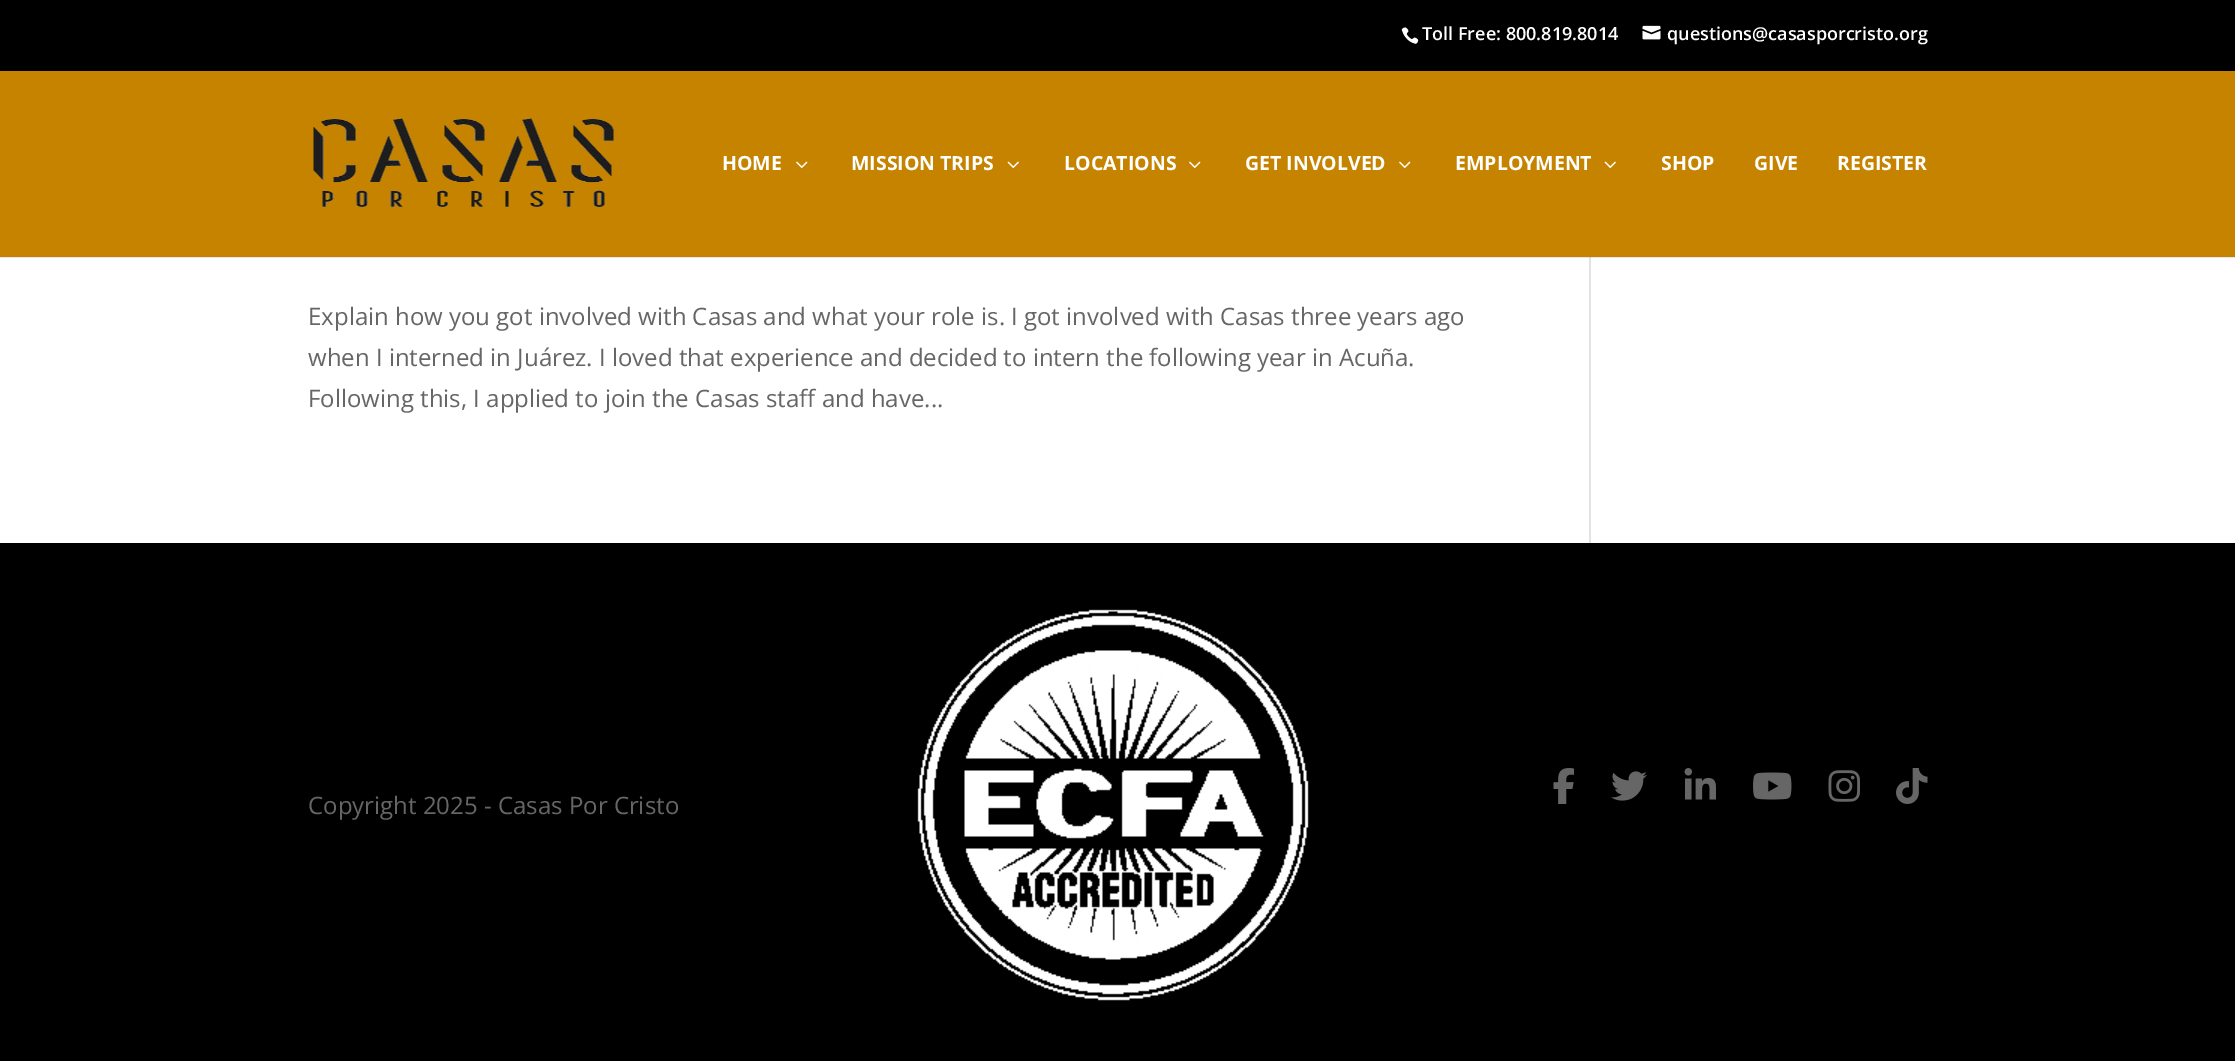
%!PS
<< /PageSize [2235 1061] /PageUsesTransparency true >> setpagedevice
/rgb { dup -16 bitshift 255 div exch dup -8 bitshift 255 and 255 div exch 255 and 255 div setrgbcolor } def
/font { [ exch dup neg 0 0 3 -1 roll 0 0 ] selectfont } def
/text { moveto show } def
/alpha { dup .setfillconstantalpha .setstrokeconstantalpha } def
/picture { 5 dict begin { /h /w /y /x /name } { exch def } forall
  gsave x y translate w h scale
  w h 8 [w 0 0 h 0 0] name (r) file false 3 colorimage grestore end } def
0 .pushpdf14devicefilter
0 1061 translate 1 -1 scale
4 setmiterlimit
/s1 { /OpenSans-SemiBold 18 font 16#FFFFFF rgb } def
/s2 { /OpenSans-Bold 19.5 font 16#FFFFFF rgb } def
/s3 { /OpenSans-Regular 24 font 16#666666 rgb } def
16#000000 rgb
0 0 2235 1061 rectfill
(pic1.raw) 1401 27 18 17 picture
s1
(Toll Free: 800.819.8014) 1422 40 text
(pic2.raw) 1642 25 19 15 picture
(questions@casasporcristo.org) 1667 40 text
0 257 2235 286 rectfill
16#E2E2E2 rgb
1589 257 2 286 rectfill
0.1 alpha
16#000000 rgb
0 257 2235 1 rectfill
1 alpha
16#C58300 rgb
0 71 2235 186 rectfill
(pic3.raw) 313 118 301 89 picture
s2
(HOME) 722 170 text
(pic4.raw) 796 161 12 7 picture
(MISSION TRIPS) 851 170 text
(pic5.raw) 1007 161 12 7 picture
(LOCATIONS) 1064 170 text
(pic4.raw) 1189 161 12 7 picture
(GET INVOLVED) 1245 170 text
(pic4.raw) 1399 161 12 7 picture
(EMPLOYMENT) 1455 170 text
(pic5.raw) 1604 161 12 7 picture
(SHOP) 1661 170 text
(GIVE) 1754 170 text
(REGISTER) 1837 170 text
s3
(Explain how you got involved with Casas and what your role is. I got involved with Casas three years ago) 308 325 text
(when I interned in Juárez. I loved that experience and decided to intern the following year in Acuña.) 308 366 text
(Following this, I applied to join the Casas staff and have...) 308 407 text
(pic6.raw) 917 609 392 392 picture
(pic7.raw) 1553 768 21 36 picture
(pic8.raw) 1611 771 36 30 picture
(pic9.raw) 1684 768 32 32 picture
(pic10.raw) 1753 772 39 28 picture
(pic11.raw) 1828 770 32 32 picture
(pic12.raw) 1896 768 32 36 picture
(Copyright 2025 - Casas Por Cristo) 308 814 text
.poppdf14devicefilter showpage
